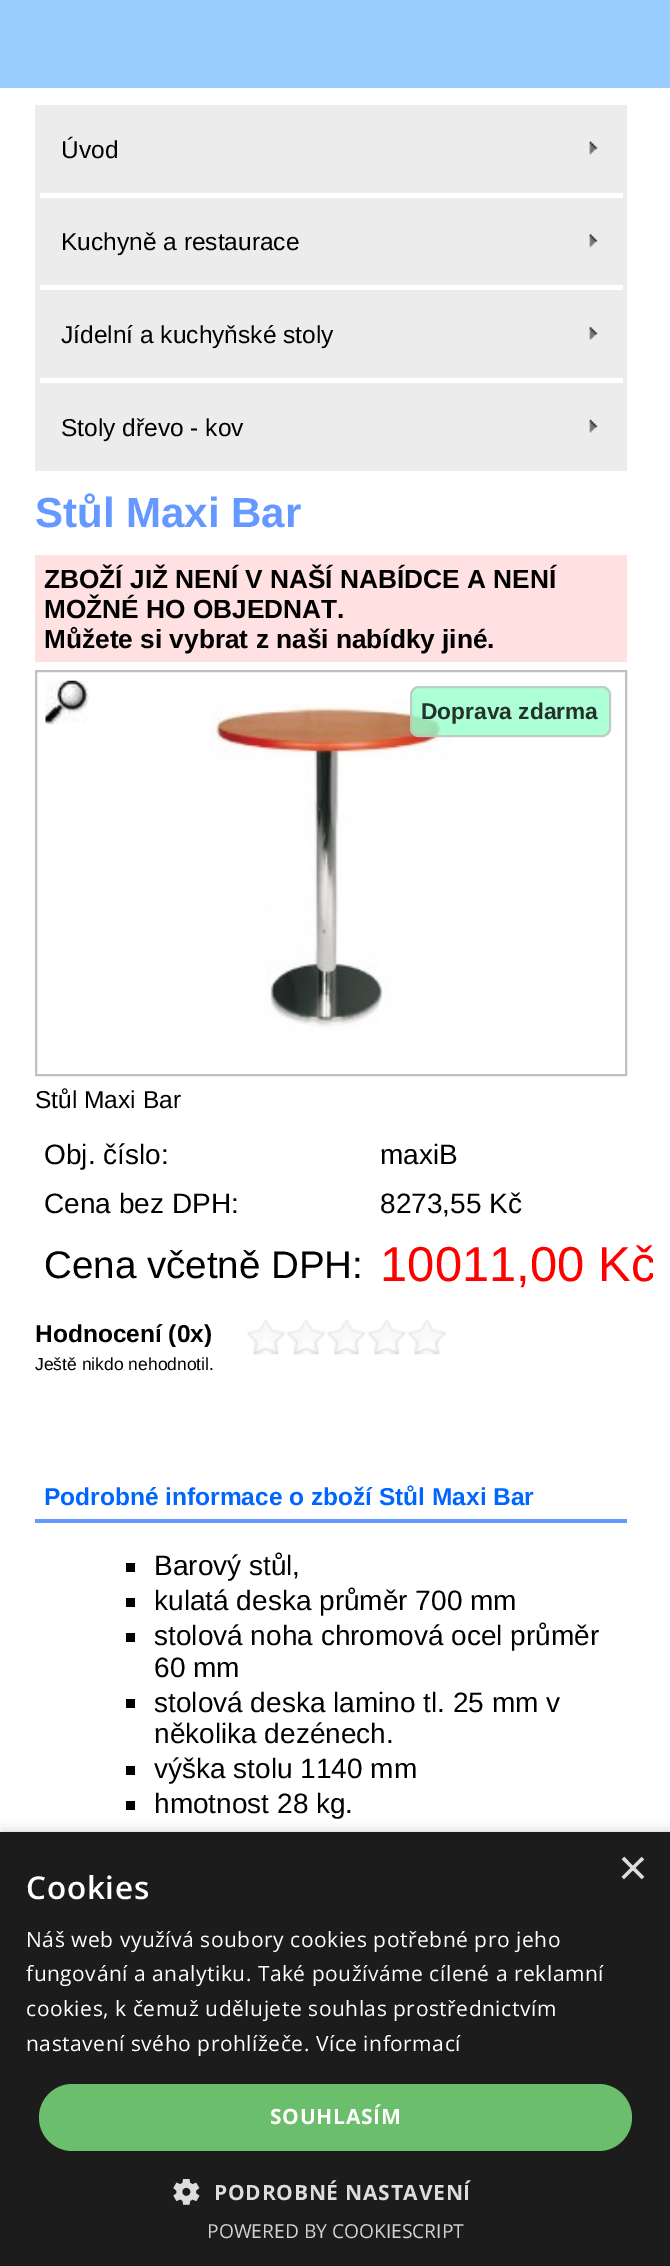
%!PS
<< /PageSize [670 2266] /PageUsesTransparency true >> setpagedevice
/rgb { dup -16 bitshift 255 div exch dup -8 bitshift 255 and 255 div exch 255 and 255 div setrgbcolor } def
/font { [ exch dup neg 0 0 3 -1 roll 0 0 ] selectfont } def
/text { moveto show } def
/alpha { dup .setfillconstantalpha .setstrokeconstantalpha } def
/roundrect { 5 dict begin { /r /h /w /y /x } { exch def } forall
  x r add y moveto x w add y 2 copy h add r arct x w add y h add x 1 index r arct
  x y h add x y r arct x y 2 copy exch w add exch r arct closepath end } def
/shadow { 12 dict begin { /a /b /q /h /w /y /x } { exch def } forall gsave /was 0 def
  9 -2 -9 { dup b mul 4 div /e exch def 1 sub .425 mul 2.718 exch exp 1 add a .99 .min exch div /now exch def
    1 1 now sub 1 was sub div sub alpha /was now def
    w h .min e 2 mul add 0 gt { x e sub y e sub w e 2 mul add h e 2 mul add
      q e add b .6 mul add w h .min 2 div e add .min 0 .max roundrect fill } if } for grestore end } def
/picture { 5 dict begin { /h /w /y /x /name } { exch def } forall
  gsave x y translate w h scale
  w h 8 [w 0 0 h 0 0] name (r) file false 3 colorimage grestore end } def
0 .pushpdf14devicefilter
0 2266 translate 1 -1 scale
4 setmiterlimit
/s1 { /LiberationSans-Regular 24.5 font 16#000000 rgb } def
/s2 { /LiberationSans-Bold 42 font 16#6699FF rgb } def
/s3 { /LiberationSans-Bold 26.25 font 16#000000 rgb } def
/s4 { /LiberationSans-Bold 22.75 font 16#23332B rgb } def
/s5 { /LiberationSans-Regular 28 font 16#000000 rgb } def
/s6 { /LiberationSans-Regular 38.5 font 16#000000 rgb } def
/s7 { /LiberationSans-Regular 49 font 16#FF0000 rgb } def
/s8 { /LiberationSans-Bold 24.5 font 16#000000 rgb } def
/s9 { /LiberationSans-Regular 17.5 font 16#000000 rgb } def
/s10 { /LiberationSans-Bold 24.5 font 16#0066FF rgb } def
/s11 { /LiberationSans-Regular 51 font 16#DDDDDD rgb } def
/s12 { /OpenSans-Regular 19.25 font 16#D2D2D2 rgb } def
16#FFFFFF rgb
0 0 670 2266 rectfill
16#99CCFF rgb
0 0 670 88 rectfill
16#ECECEC rgb
35 105 592 366 rectfill
(pic1.raw) 589 141 9 14 picture
16#FFFFFF rgb
40 193 583 5 rectfill
s1
(Úvod) 61 158 text
(pic2.raw) 589 234 9 14 picture
16#FFFFFF rgb
40 285 583 5 rectfill
s1
(Kuchyně a restaurace) 61 250 text
(pic3.raw) 589 326 9 14 picture
16#FFFFFF rgb
40 378 583 5 rectfill
s1
(Jídelní a kuchyňské stoly) 61 343 text
(pic4.raw) 589 419 9 14 picture
(Stoly dřevo - kov) 61 436 text
s2
(Stůl Maxi Bar) 35 527 text
16#FFE1E1 rgb
35 555 592 107 rectfill
s3
(ZBOŽÍ JIŽ NENÍ V NAŠÍ NABÍDCE A NENÍ) 44 588 text
(MOŽNÉ HO OBJEDNAT.) 44 618 text
(Můžete si vybrat z naši nabídky jiné.) 44 648 text
16#C0C0C0 rgb
2 setlinewidth
36 671 590 404 rectstroke
(pic5.raw) 45 680 45 45 picture
(pic6.raw) 210 698 241 333 picture
0.8 alpha
16#99FFCC rgb
410 686 201 51 9 roundrect fill
16#C0C0C0 rgb
411 687 199 49 8 roundrect stroke
1 alpha
s4
(Doprava zdarma) 421 719 text
s1
(Stůl Maxi Bar) 35 1108 text
s5
(Obj. číslo:) 44 1164 text
(maxiB) 380 1164 text
(Cena bez DPH:) 44 1213 text
(8273,55 Kč) 380 1213 text
s6
(Cena včetně DPH:) 44 1278 text
gsave
18 88 635 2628 rectclip
s7
(10011,00 Kč) 380 1281 text
grestore
s8
(Hodnocení \(0x\)) 35 1342 text
(pic7.raw) 247 1319 200 36 picture
s9
(Ještě nikdo nehodnotil.) 35 1370 text
16#6699FF rgb
35 1519 592 4 rectfill
s10
(Podrobné informace o zboží Stůl Maxi Bar) 44 1505 text
16#000000 rgb
126 1563 9 9 rectfill
s5
(Barový stůl,) 154 1575 text
126 1598 9 9 rectfill
(kulatá deska průměr 700 mm) 154 1610 text
126 1633 9 9 rectfill
(stolová noha chromová ocel průměr) 154 1645 text
(60 mm) 154 1677 text
126 1699 9 9 rectfill
(stolová deska lamino tl. 25 mm v) 154 1712 text
(několika dezénech.) 154 1743 text
126 1766 9 9 rectfill
(výška stolu 1140 mm) 154 1778 text
126 1801 9 9 rectfill
(hmotnost 28 kg.) 154 1813 text
2 1836 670 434 0 7 0.35 shadow
16#1C1C1C rgb
0 1832 670 434 rectfill
s11
(×) 618 1885 text
/OpenSans-SemiBold 31.5 font
16#FFFFFF rgb
26 1899 moveto 0.75 0 (Cookies) ashow
/OpenSans-Regular 21 font
26 1947 moveto 0.53 0 (Náš web využívá soubory cookies potřebné pro jeho) ashow
26 1981 moveto 0.53 0 (fungování a analytiku. Také používáme cílené a reklamní) ashow
26 2016 moveto 0.53 0 (cookies, k čemuž udělujete souhlas prostřednictvím) ashow
26 2051 moveto 0.53 0 (nastavení svého prohlížeče. Více informací) ashow
16#6BBE6B rgb
39 2084 593 67 33.5 roundrect fill
/OpenSans-Bold 21 font
16#FFFFFF rgb
270 2124 moveto 0.75 0 (SOUHLASÍM) ashow
(pic8.raw) 173 2179 27 26 picture
16#DDDDDD rgb
214 2200 moveto 0.75 0 (PODROBNÉ NASTAVENÍ) ashow
s12
(POWERED BY COOKIESCRIPT) 207 2238 text
.poppdf14devicefilter showpage
